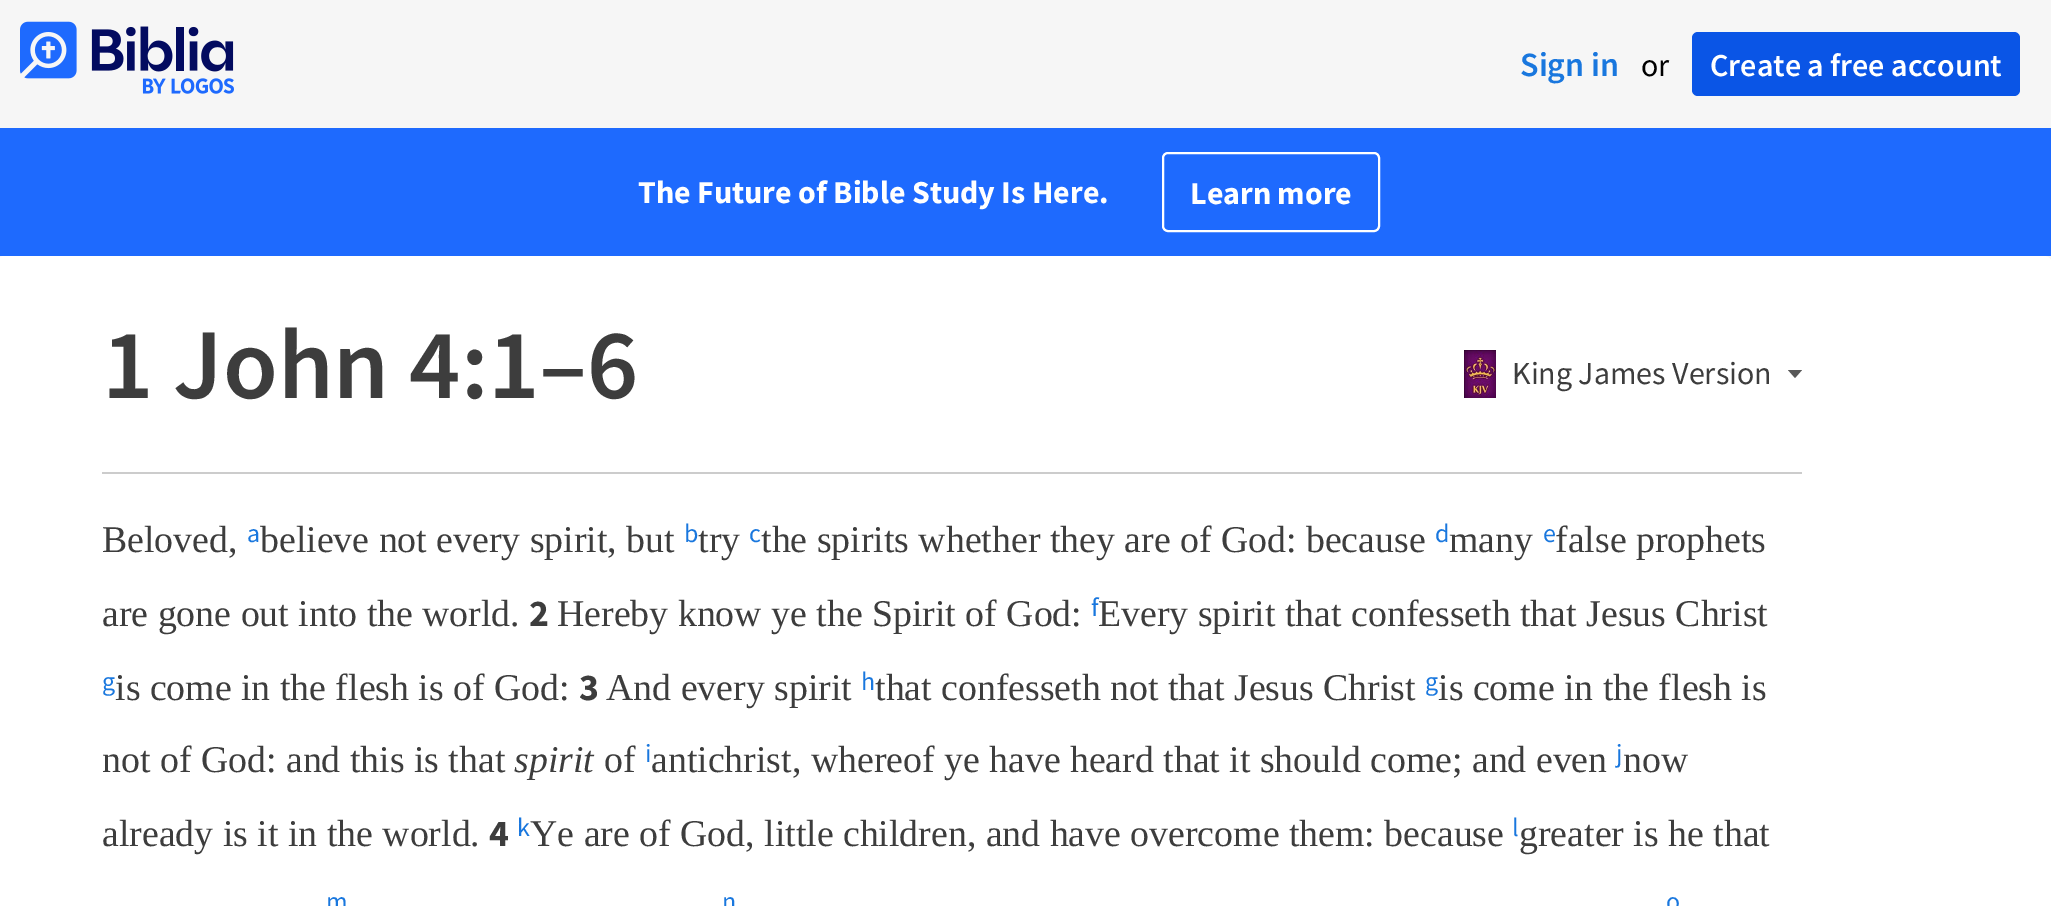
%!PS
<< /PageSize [2051 906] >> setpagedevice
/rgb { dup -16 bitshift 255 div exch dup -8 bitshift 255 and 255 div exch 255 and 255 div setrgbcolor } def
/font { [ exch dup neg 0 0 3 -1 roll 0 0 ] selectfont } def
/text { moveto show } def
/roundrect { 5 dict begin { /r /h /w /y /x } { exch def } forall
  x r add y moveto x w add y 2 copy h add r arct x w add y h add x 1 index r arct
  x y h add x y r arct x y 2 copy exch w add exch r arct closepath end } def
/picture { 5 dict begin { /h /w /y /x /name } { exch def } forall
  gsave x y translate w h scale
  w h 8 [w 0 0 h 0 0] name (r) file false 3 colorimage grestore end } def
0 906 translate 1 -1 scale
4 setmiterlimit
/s1 { /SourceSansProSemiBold-SemiBold 34 font 16#1977DE rgb } def
/s2 { /SourceSansPro-Regular 32 font 16#000000 rgb } def
/s3 { /SourceSansProSemiBold-SemiBold 32 font 16#FFFFFF rgb } def
/s4 { /SourceSansPro-Bold 32 font 16#FFFFFF rgb } def
/s5 { /SourceSansProSemiBold-SemiBold 100 font 16#3D3D3D rgb } def
/s6 { /SourceSansPro-Regular 32 font 16#3D3D3D rgb } def
/s7 { /LiberationSerif-Regular 37.8 font 16#3D3D3D rgb } def
/s8 { /SourceSansPro-Regular 26 font 16#1977DE rgb } def
/s9 { /SourceSansPro-Bold 37.8 font 16#3D3D3D rgb } def
/s10 { /LiberationSerif-Italic 37.8 font 16#3D3D3D rgb } def
16#F6F6F6 rgb
0 0 2051 906 rectfill
(pic1.raw) 20 21 214 73 picture
s1
(Sign in) 1520 76 text
s2
(or) 1641 76 text
16#0A55E6 rgb
1692 32 328 64 6 roundrect fill
s3
(Create a free account) 1710 76 text
16#1E6AFE rgb
0 128 2051 128 rectfill
s4
(The Future of Bible Study Is Here.) 638 203 text
2 setlinewidth
1163 153 216 78 5 roundrect stroke
(Learn more) 1190 204 text
-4 256 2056 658 8 roundrect fill
16#CCCCCC rgb
102 472 1700 2 rectfill
s5
(1 John 4:1–6) 102 398 text
(pic2.raw) 1464 350 32 48 picture
s6
(King James Version) 1512 384 text
16#585858 rgb
1795 378 moveto 1802 370 lineto 1788 370 lineto closepath eofill
s7
(Beloved,) 102 552 text
s8
(a) 247 542 text
s7
(believe not every spirit, but) 260 552 text
s8
(b) 684 542 text
s7
(try) 698 552 text
s8
(c) 749 542 text
s7
(the spirits whether they are of God: because) 761 552 text
s8
(d) 1435 542 text
s7
(many) 1449 552 text
s8
(e) 1543 542 text
s7
(false prophets) 1555 552 text
(are gone out into the world.) 102 626 text
s9
(2) 529 626 text
s7
(Hereby know ye the Spirit of God:) 557 626 text
s8
(f) 1091 616 text
s7
(Every spirit that confesseth that Jesus Christ) 1098 626 text
s8
(g) 102 690 text
s7
(is come in the flesh is of God:) 115 700 text
s9
(3) 579 700 text
s7
(And every spirit) 606 700 text
s8
(h) 861 690 text
s7
(that confesseth not that Jesus Christ) 875 700 text
s8
(g) 1425 690 text
s7
(is come in the flesh is) 1438 700 text
(not of God: and this is that) 102 772 text
s10
(spirit) 514 772 text
s7
(of) 604 772 text
s8
(i) 645 762 text
s7
(antichrist, whereof ye have heard that it should come; and even) 651 772 text
s8
(j) 1616 762 text
s7
(now) 1623 772 text
(already is it in the world.) 102 846 text
s9
(4) 489 846 text
s8
(k) 517 836 text
s7
(Ye are of God, little children, and have overcome them: because) 530 846 text
s8
(l) 1512 836 text
s7
(greater is he that) 1519 846 text
s8
(m) 326 910 text
(n) 722 910 text
(o) 1666 910 text
showpage
